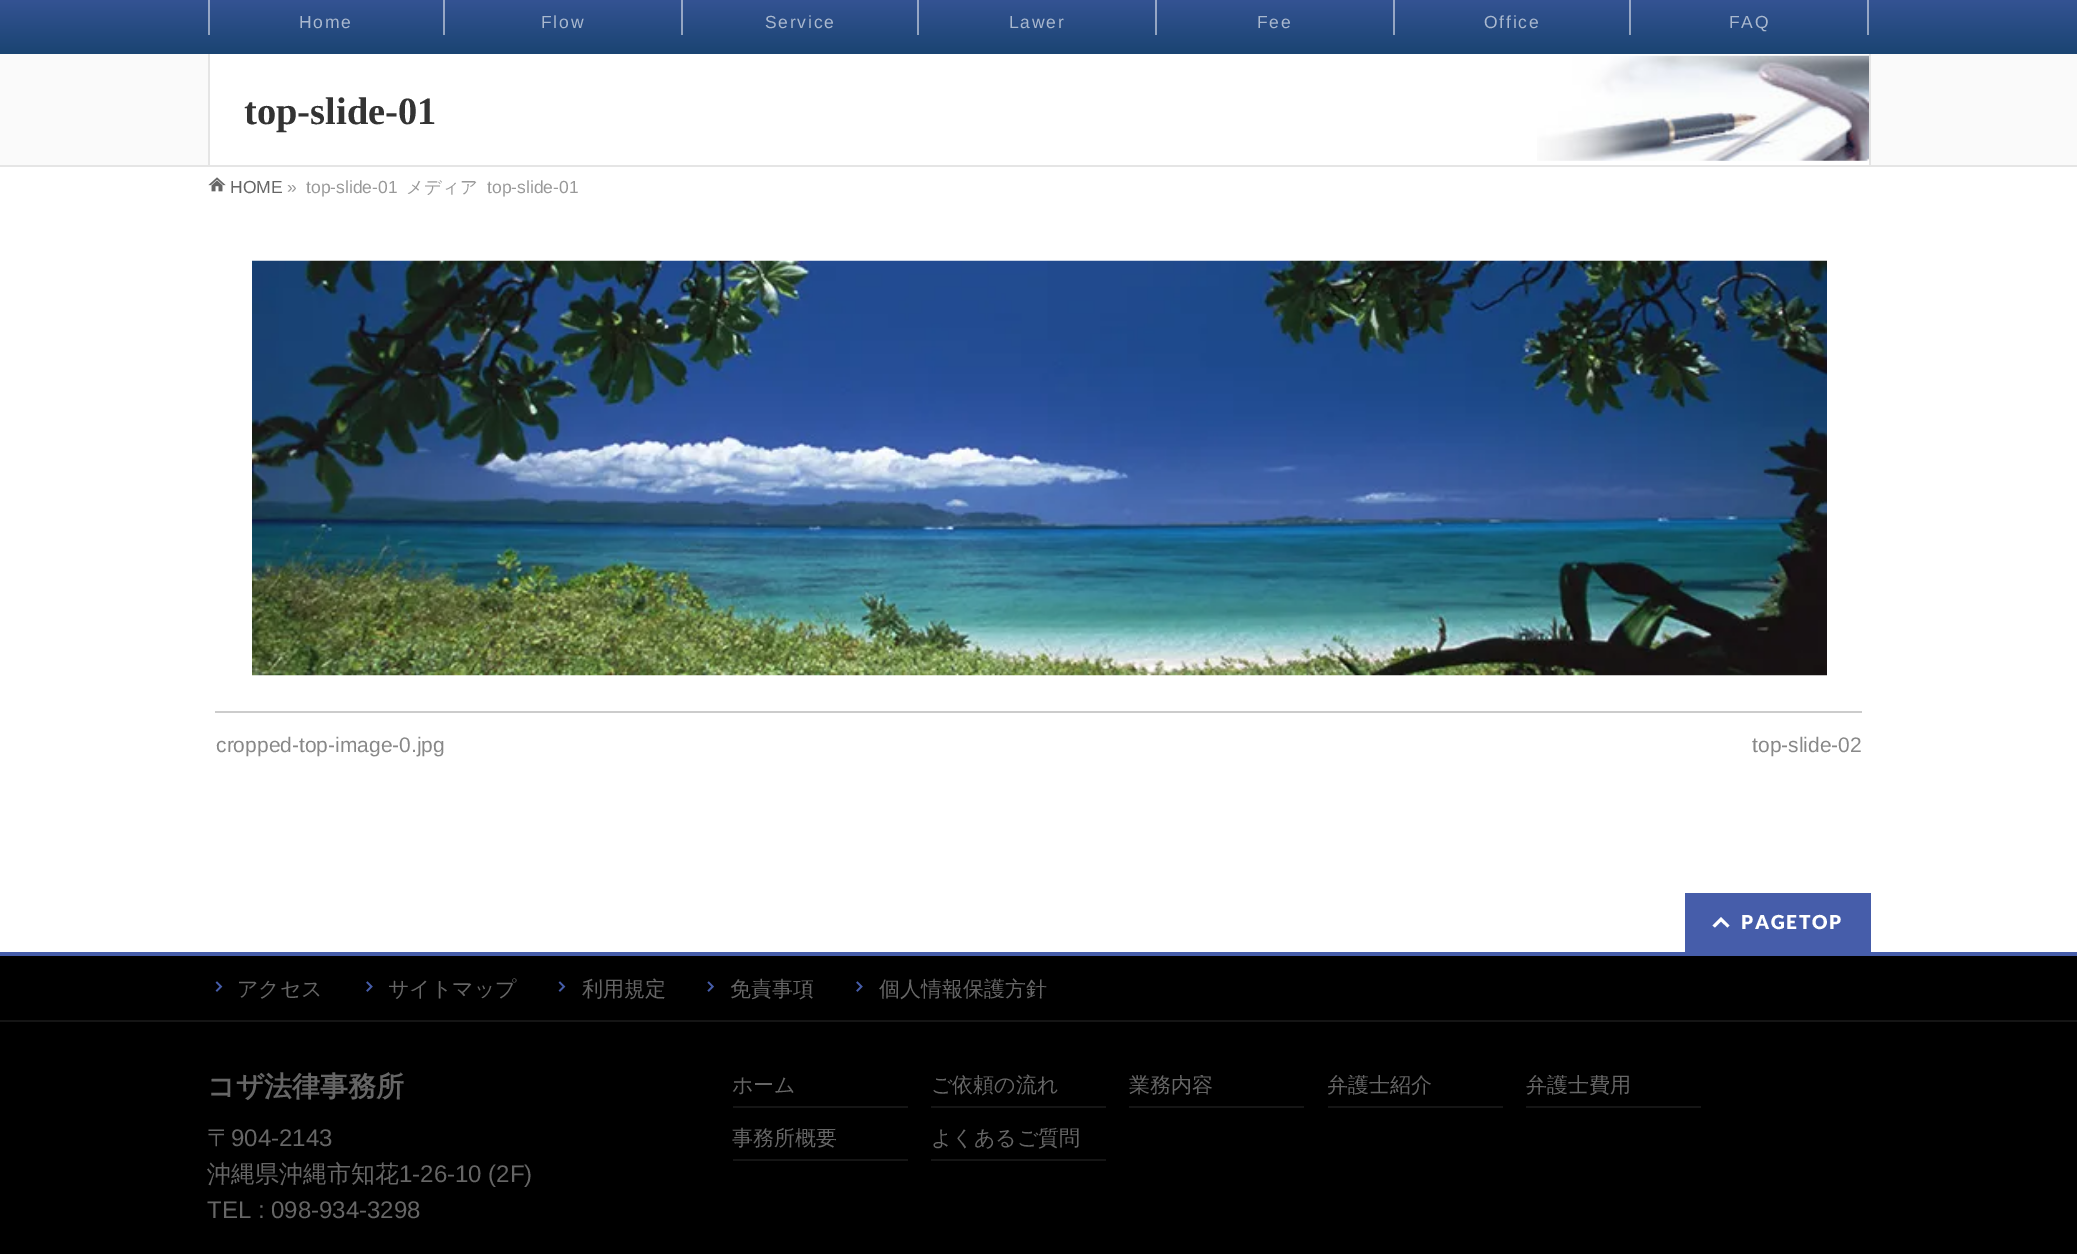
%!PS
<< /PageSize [2077 1254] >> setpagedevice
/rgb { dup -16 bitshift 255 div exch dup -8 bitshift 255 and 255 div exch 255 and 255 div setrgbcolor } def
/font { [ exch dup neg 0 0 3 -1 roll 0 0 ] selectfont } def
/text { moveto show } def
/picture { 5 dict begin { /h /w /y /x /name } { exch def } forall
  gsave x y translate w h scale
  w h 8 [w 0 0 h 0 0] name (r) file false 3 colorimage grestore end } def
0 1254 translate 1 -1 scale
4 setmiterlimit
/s1 { /LiberationSerif-Bold 38.5 font 16#333333 rgb } def
/s2 { /LiberationSans-Regular 17.5 font 16#666666 rgb } def
/s3 { /LiberationSans-Regular 17.5 font 16#999999 rgb } def
/s4 { /WenQuanYiZenHei-Medium 17.5 font 16#999999 rgb } def
/s5 { /LiberationSans-Regular 21 font 16#888888 rgb } def
/s6 { /WenQuanYiZenHei-Medium 21 font 16#666666 rgb } def
/s7 { /WenQuanYiZenHei-Bold 28 font 16#666666 rgb } def
/s8 { /WenQuanYiZenHei-Medium 24 font 16#666666 rgb } def
/s9 { /LiberationSans-Regular 24 font 16#666666 rgb } def
16#FFFFFF rgb
0 0 2077 1254 rectfill
gsave 0 0 moveto 2077 0 lineto 2077 54 lineto 0 54 lineto closepath clip newpath
<< /ShadingType 2 /ColorSpace /DeviceRGB /Coords [1039 -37 1039 54] /Extend [true true] /Function << /FunctionType 2 /Domain [0 1] /C0 [0.275 0.365 0.667] /C1 [0.102 0.267 0.447] /N 1 >> >> shfill grestore
gsave 1867 0 moveto 1869 0 lineto 1869 35 lineto 1867 35 lineto closepath clip newpath
<< /ShadingType 2 /ColorSpace /DeviceRGB /Coords [1039 -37 1039 54] /Extend [true true] /Function << /FunctionType 2 /Domain [0 1] /C0 [0.639 0.682 0.835] /C1 [0.553 0.635 0.725] /N 1 >> >> shfill grestore
gsave 1629 0 moveto 1631 0 lineto 1631 35 lineto 1629 35 lineto closepath clip newpath
<< /ShadingType 2 /ColorSpace /DeviceRGB /Coords [1039 -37 1039 54] /Extend [true true] /Function << /FunctionType 2 /Domain [0 1] /C0 [0.639 0.682 0.835] /C1 [0.553 0.635 0.725] /N 1 >> >> shfill grestore
gsave 1393 0 moveto 1395 0 lineto 1395 35 lineto 1393 35 lineto closepath clip newpath
<< /ShadingType 2 /ColorSpace /DeviceRGB /Coords [1039 -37 1039 54] /Extend [true true] /Function << /FunctionType 2 /Domain [0 1] /C0 [0.639 0.682 0.835] /C1 [0.553 0.635 0.725] /N 1 >> >> shfill grestore
gsave 1155 0 moveto 1157 0 lineto 1157 35 lineto 1155 35 lineto closepath clip newpath
<< /ShadingType 2 /ColorSpace /DeviceRGB /Coords [1039 -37 1039 54] /Extend [true true] /Function << /FunctionType 2 /Domain [0 1] /C0 [0.639 0.682 0.835] /C1 [0.553 0.635 0.725] /N 1 >> >> shfill grestore
gsave 917 0 moveto 919 0 lineto 919 35 lineto 917 35 lineto closepath clip newpath
<< /ShadingType 2 /ColorSpace /DeviceRGB /Coords [1039 -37 1039 54] /Extend [true true] /Function << /FunctionType 2 /Domain [0 1] /C0 [0.639 0.682 0.835] /C1 [0.553 0.635 0.725] /N 1 >> >> shfill grestore
gsave 681 0 moveto 683 0 lineto 683 35 lineto 681 35 lineto closepath clip newpath
<< /ShadingType 2 /ColorSpace /DeviceRGB /Coords [1039 -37 1039 54] /Extend [true true] /Function << /FunctionType 2 /Domain [0 1] /C0 [0.639 0.682 0.835] /C1 [0.553 0.635 0.725] /N 1 >> >> shfill grestore
gsave 208 0 moveto 210 0 lineto 210 35 lineto 208 35 lineto closepath clip newpath
<< /ShadingType 2 /ColorSpace /DeviceRGB /Coords [1039 -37 1039 54] /Extend [true true] /Function << /FunctionType 2 /Domain [0 1] /C0 [0.639 0.682 0.835] /C1 [0.553 0.635 0.725] /N 1 >> >> shfill grestore
gsave 443 0 moveto 445 0 lineto 445 35 lineto 443 35 lineto closepath clip newpath
<< /ShadingType 2 /ColorSpace /DeviceRGB /Coords [1039 -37 1039 54] /Extend [true true] /Function << /FunctionType 2 /Domain [0 1] /C0 [0.639 0.682 0.835] /C1 [0.553 0.635 0.725] /N 1 >> >> shfill grestore
/LiberationSans-Regular 17.5 font
16#A9B8CE rgb
299 28 moveto 1.75 0 (Home) ashow
541 28 moveto 1.75 0 (Flow) ashow
765 28 moveto 1.75 0 (Service) ashow
1009 28 moveto 1.75 0 (Lawer) ashow
1257 28 moveto 1.75 0 (Fee) ashow
1484 28 moveto 1.75 0 (Office) ashow
1729 28 moveto 1.75 0 (FAQ) ashow
16#FAFAFA rgb
0 54 2077 111 rectfill
16#E5E5E5 rgb
0 165 2077 2 rectfill
16#FFFFFF rgb
210 54 1659 111 rectfill
(pic1.raw) 1537 55 332 106 picture
16#E5E5E5 rgb
1869 54 2 111 rectfill
208 54 2 111 rectfill
s1
(top-slide-01) 244 124 text
(pic2.raw) 208 177 18 15 picture
s2
(HOME) 230 193 text
s3
(») 287 193 text
(top-slide-01) 306 193 text
s4
(メディア) 406 193 text
s3
(top-slide-01) 487 193 text
(pic3.raw) 252 260 1575 416 picture
16#CCCCCC rgb
215 711 1647 2 rectfill
s5
(cropped-top-image-0.jpg) 216 752 text
(top-slide-02) 1752 752 text
16#465DAA rgb
1685 893 186 59 rectfill
16#FFFFFF rgb
1721 921.5 moveto 1715 927.5 lineto 1712.5 925.5 lineto 1721 917 lineto 1729.5 925.5 lineto 1727.5 927.5 lineto closepath fill
/Lato-Black 19.25 font
1741 929 moveto 1.75 0 (PAGETOP) ashow
16#000000 rgb
0 956 2077 64 rectfill
16#465DAA rgb
0 952 2077 4 rectfill
16#151515 rgb
0 1020 2077 2 rectfill
(pic4.raw) 215 981 8 11 picture
s6
(アクセス) 237 996 text
(pic5.raw) 366 981 7 11 picture
(サイトマップ) 388 996 text
(pic4.raw) 558 981 8 11 picture
(利用規定) 582 996 text
(pic6.raw) 707 981 7 11 picture
(免責事項) 730 996 text
(pic5.raw) 856 981 7 11 picture
(個人情報保護方針) 879 996 text
16#000000 rgb
0 1022 2077 232 rectfill
s7
(コザ法律事務所) 207 1096 text
s8
(〒) 207 1146 text
s9
(904-2143) 231 1146 text
s8
(沖縄県沖縄市知花) 207 1182 text
s9
(1-26-10 \(2F\)) 399 1182 text
(TEL : 098-934-3298) 207 1218 text
16#151515 rgb
733 1106 175 2 rectfill
s6
(ホーム) 732 1092 text
16#151515 rgb
931 1106 175 2 rectfill
s6
(ご依頼の流れ) 931 1092 text
16#151515 rgb
1129 1106 175 2 rectfill
gsave
1129 1075 175 31 rectclip
s6
(業務内容) 1129 1092 text
grestore
1328 1106 175 2 rectfill
gsave
1328 1075 175 31 rectclip
s6
(弁護士紹介) 1327 1092 text
grestore
1526 1106 175 2 rectfill
gsave
1526 1075 175 31 rectclip
s6
(弁護士費用) 1526 1092 text
grestore
733 1159 175 2 rectfill
s6
(事務所概要) 732 1145 text
16#151515 rgb
931 1159 175 2 rectfill
s6
(よくあるご質問) 931 1145 text
showpage
